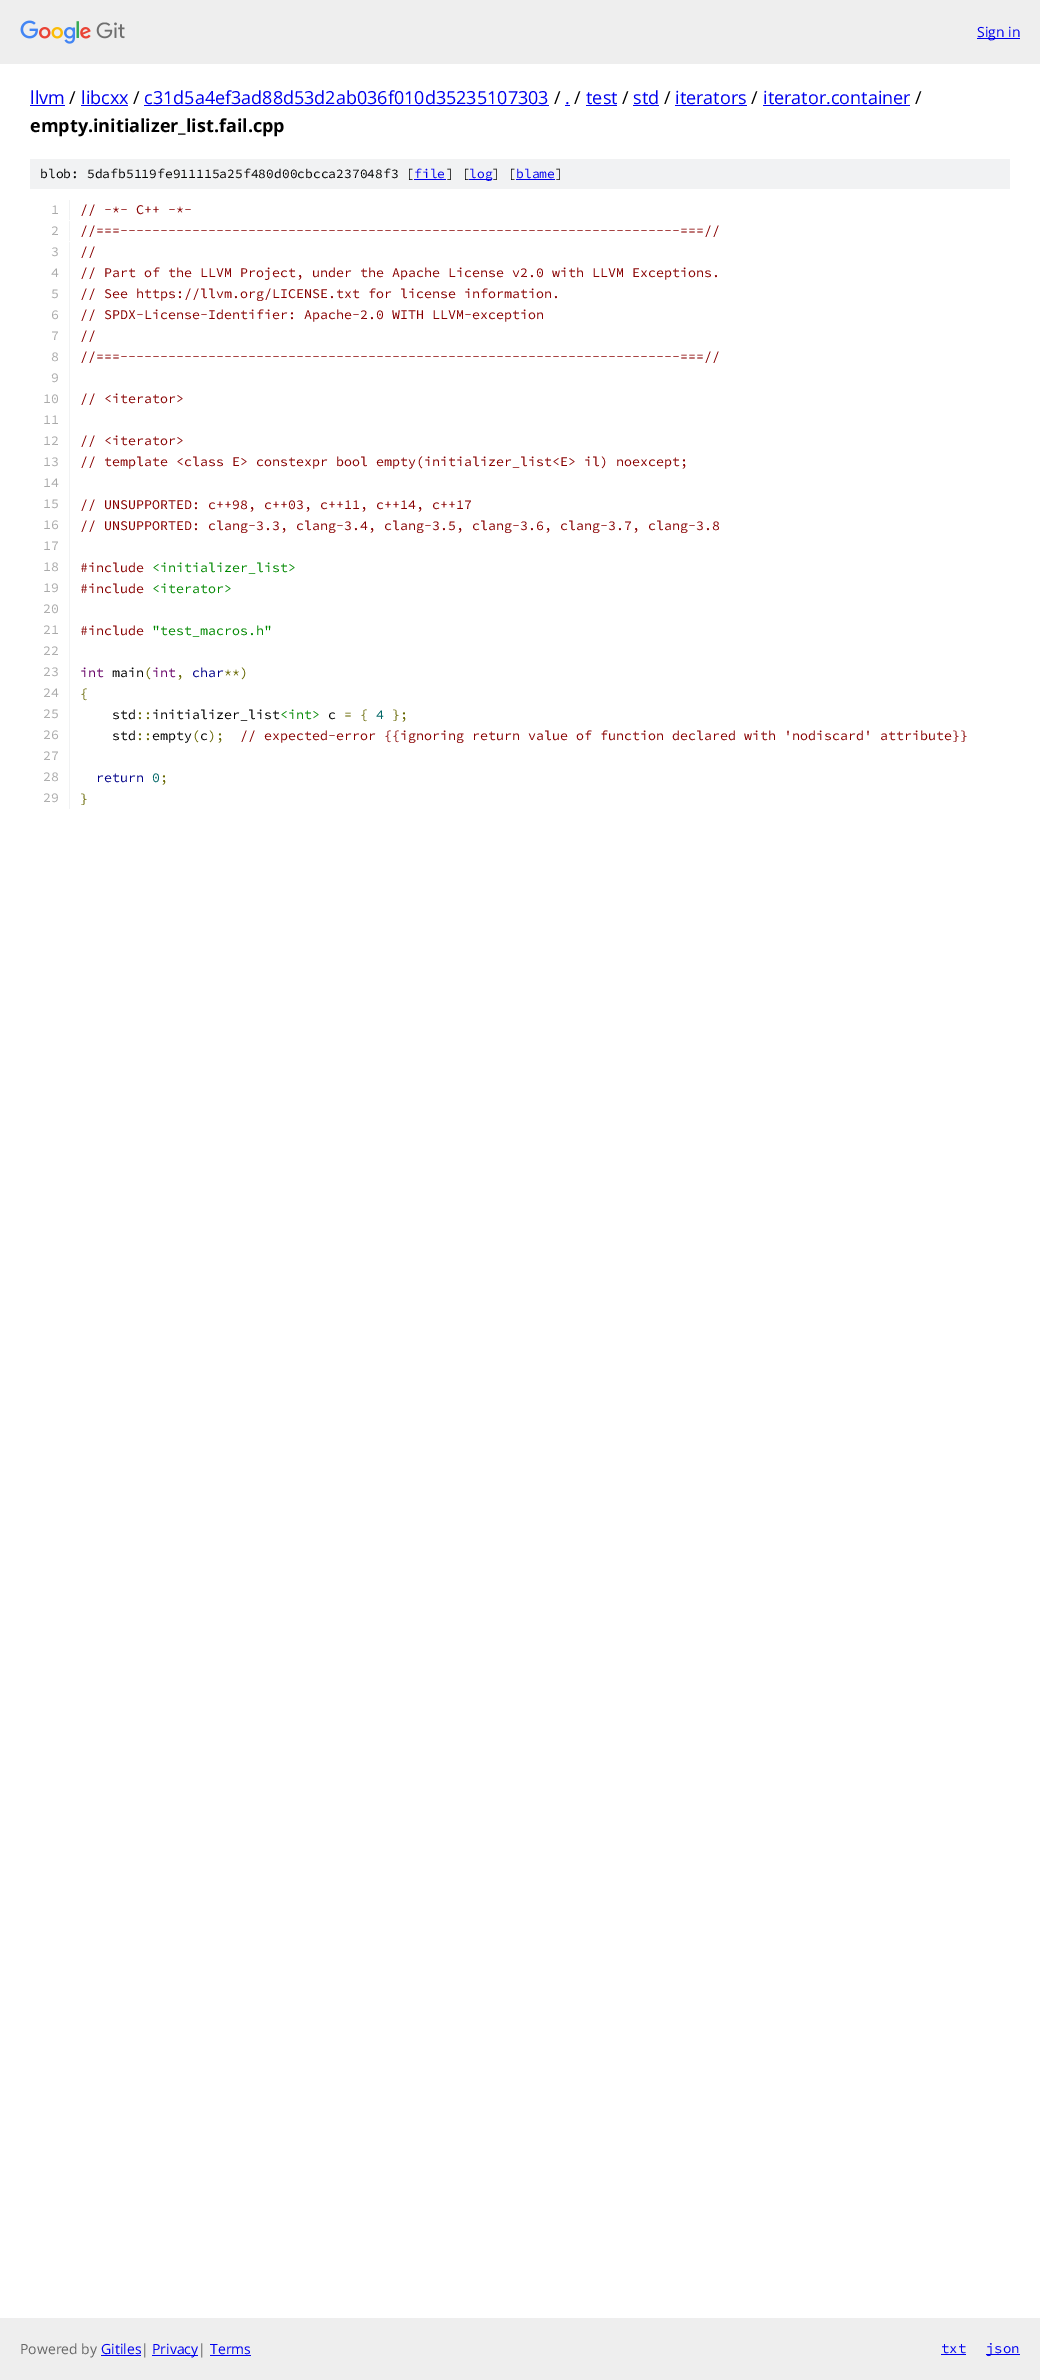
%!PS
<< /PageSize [1040 2380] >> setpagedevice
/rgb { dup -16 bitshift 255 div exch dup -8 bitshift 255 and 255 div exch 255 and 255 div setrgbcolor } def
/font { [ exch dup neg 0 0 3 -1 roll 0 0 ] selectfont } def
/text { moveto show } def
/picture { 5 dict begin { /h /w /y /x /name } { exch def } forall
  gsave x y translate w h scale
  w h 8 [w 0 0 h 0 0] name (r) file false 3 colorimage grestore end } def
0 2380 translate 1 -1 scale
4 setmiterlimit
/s1 { /OpenSans-Regular 14 font 16#0000EE rgb } def
/s2 { /OpenSans-Regular 18 font 16#0000EE rgb } def
/s3 { /OpenSans-Regular 18 font 16#000000 rgb } def
/s4 { /OpenSans-Bold 18 font 16#000000 rgb } def
/s5 { /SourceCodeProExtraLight-ExtraLight 13 font 16#000000 rgb } def
/s6 { /SourceCodeProExtraLight-ExtraLight 13 font 16#0000EE rgb } def
/s7 { /SourceCodeProExtraLight-ExtraLight 13.33 font 16#AAAAAA rgb } def
/s8 { /SourceCodeProExtraLight-ExtraLight 13.33 font 16#880000 rgb } def
/s9 { /SourceCodeProExtraLight-ExtraLight 13.33 font 16#008800 rgb } def
/s10 { /SourceCodeProExtraLight-ExtraLight 13.33 font 16#660066 rgb } def
/s11 { /SourceCodeProExtraLight-ExtraLight 13.33 font 16#000000 rgb } def
/s12 { /SourceCodeProExtraLight-ExtraLight 13.33 font 16#666600 rgb } def
/s13 { /SourceCodeProExtraLight-ExtraLight 13.33 font 16#000088 rgb } def
/s14 { /SourceCodeProExtraLight-ExtraLight 13.33 font 16#006666 rgb } def
/s15 { /OpenSans-Regular 14 font 16#666666 rgb } def
/s16 { /SourceCodeProExtraLight-ExtraLight 14 font 16#0000EE rgb } def
16#FFFFFF rgb
0 0 1040 2380 rectfill
16#EEEEEE rgb
0 0 1040 64 rectfill
(pic1.raw) 20 20 105 24 picture
16#0000EE rgb
977 38 43 1 rectfill
s1
(Sign in) 977 37 text
s2
(llvm) 30 104 text
30 105 35 1 rectfill
s3
(/) 69 104 text
s2
(libcxx) 81 104 text
81 105 47 1 rectfill
s3
(/) 133 104 text
s2
(c31d5a4ef3ad88d53d2ab036f010d35235107303) 144 104 text
144 105 405 1 rectfill
s3
(/) 554 104 text
s2
(.) 565 104 text
565 105 5 1 rectfill
s3
(/) 574 104 text
s2
(test) 586 104 text
586 105 31 1 rectfill
s3
(/) 622 104 text
s2
(std) 633 104 text
633 105 26 1 rectfill
s3
(/) 664 104 text
s2
(iterators) 675 104 text
675 105 72 1 rectfill
s3
(/) 751 104 text
s2
(iterator.container) 763 104 text
763 105 147 1 rectfill
s3
(/) 915 104 text
s4
(empty.initializer_list.fail.cpp) 30 132 text
16#F1F2F3 rgb
30 159 980 30 rectfill
s5
(blob: 5dafb5119fe911115a25f480d00cbcca237048f3 [) 40 178 text
s6
(file) 414 178 text
414 179 32 1 rectfill
s5
(] [) 446 178 text
16#0000EE rgb
469 179 23 1 rectfill
(log) 469 178 text
s5
(] [) 492 178 text
s6
(blame) 516 178 text
516 179 39 1 rectfill
s5
(]) 555 178 text
16#F1F2F3 rgb
69 200 1 20 rectfill
s7
(1) 51 214 text
s8
(// -*- C++ -*-) 80 214 text
16#F1F2F3 rgb
69 221 1 20 rectfill
s7
(2) 51 235 text
s8
(//===----------------------------------------------------------------------===//) 80 235 text
16#F1F2F3 rgb
69 242 1 567 rectfill
s7
(3) 51 256 text
s8
(//) 80 256 text
s7
(4) 51 277 text
s8
(// Part of the LLVM Project, under the Apache License v2.0 with LLVM Exceptions.) 80 277 text
s7
(5) 51 298 text
s8
(// See https://llvm.org/LICENSE.txt for license information.) 80 298 text
s7
(6) 51 319 text
s8
(// SPDX-License-Identifier: Apache-2.0 WITH LLVM-exception) 80 319 text
s7
(7) 51 340 text
s8
(//) 80 340 text
s7
(8) 51 361 text
s8
(//===----------------------------------------------------------------------===//) 80 361 text
s7
(9) 51 382 text
(10) 43 403 text
s8
(// <iterator>) 80 403 text
s7
(11) 43 424 text
(12) 43 445 text
s8
(// <iterator>) 80 445 text
s7
(13) 43 466 text
s8
(// template <class E> constexpr bool empty\(initializer_list<E> il\) noexcept;) 80 466 text
s7
(14) 43 487 text
(15) 43 508 text
s8
(// UNSUPPORTED: c++98, c++03, c++11, c++14, c++17) 80 509 text
s7
(16) 43 529 text
s8
(// UNSUPPORTED: clang-3.3, clang-3.4, clang-3.5, clang-3.6, clang-3.7, clang-3.8) 80 530 text
s7
(17) 43 550 text
(18) 43 571 text
s8
(#include) 80 572 text
s9
(<initializer_list>) 152 572 text
s7
(19) 43 592 text
s8
(#include) 80 593 text
s9
(<iterator>) 152 593 text
s7
(20) 43 613 text
(21) 43 634 text
s8
(#include) 80 635 text
s9
("test_macros.h") 152 635 text
s7
(22) 43 655 text
(23) 43 676 text
s10
(int) 80 677 text
s11
(main) 112 677 text
s12
(\() 144 677 text
s10
(int) 152 677 text
s12
(,) 176 677 text
s13
(char) 192 677 text
s12
(**\)) 224 677 text
s7
(24) 43 697 text
s12
({) 80 698 text
s7
(25) 43 718 text
s11
(std) 112 719 text
s12
(::) 136 719 text
s11
(initializer_list) 152 719 text
s9
(<int>) 280 719 text
s11
(c) 328 719 text
s12
(= {) 344 719 text
s14
(4) 376 719 text
s12
(};) 392 719 text
s7
(26) 43 739 text
s11
(std) 112 740 text
(empty c) 152 740 text
s12
(\( \);) 192 740 text
s8
(// expected-error {{ignoring return value of function declared with 'nodiscard' attribute}}) 240 740 text
s12
(::) 136 740 text
s7
(27) 43 760 text
(28) 43 781 text
s13
(return) 96 782 text
s14
(0) 152 782 text
s12
(;) 160 782 text
s7
(29) 43 802 text
s12
(}) 80 803 text
16#EEEEEE rgb
0 2318 1040 62 rectfill
s15
(Powered by) 20 2354 text
s1
(Gitiles) 101 2354 text
101 2355 40 1 rectfill
s15
(|) 141 2354 text
16#0000EE rgb
152 2355 46 1 rectfill
(Privacy) 152 2354 text
s15
(|) 198 2354 text
s1
(Terms) 210 2354 text
210 2355 41 1 rectfill
s16
(txt) 941 2353 text
941 2354 25 1 rectfill
986 2354 34 1 rectfill
(json) 986 2353 text
showpage
